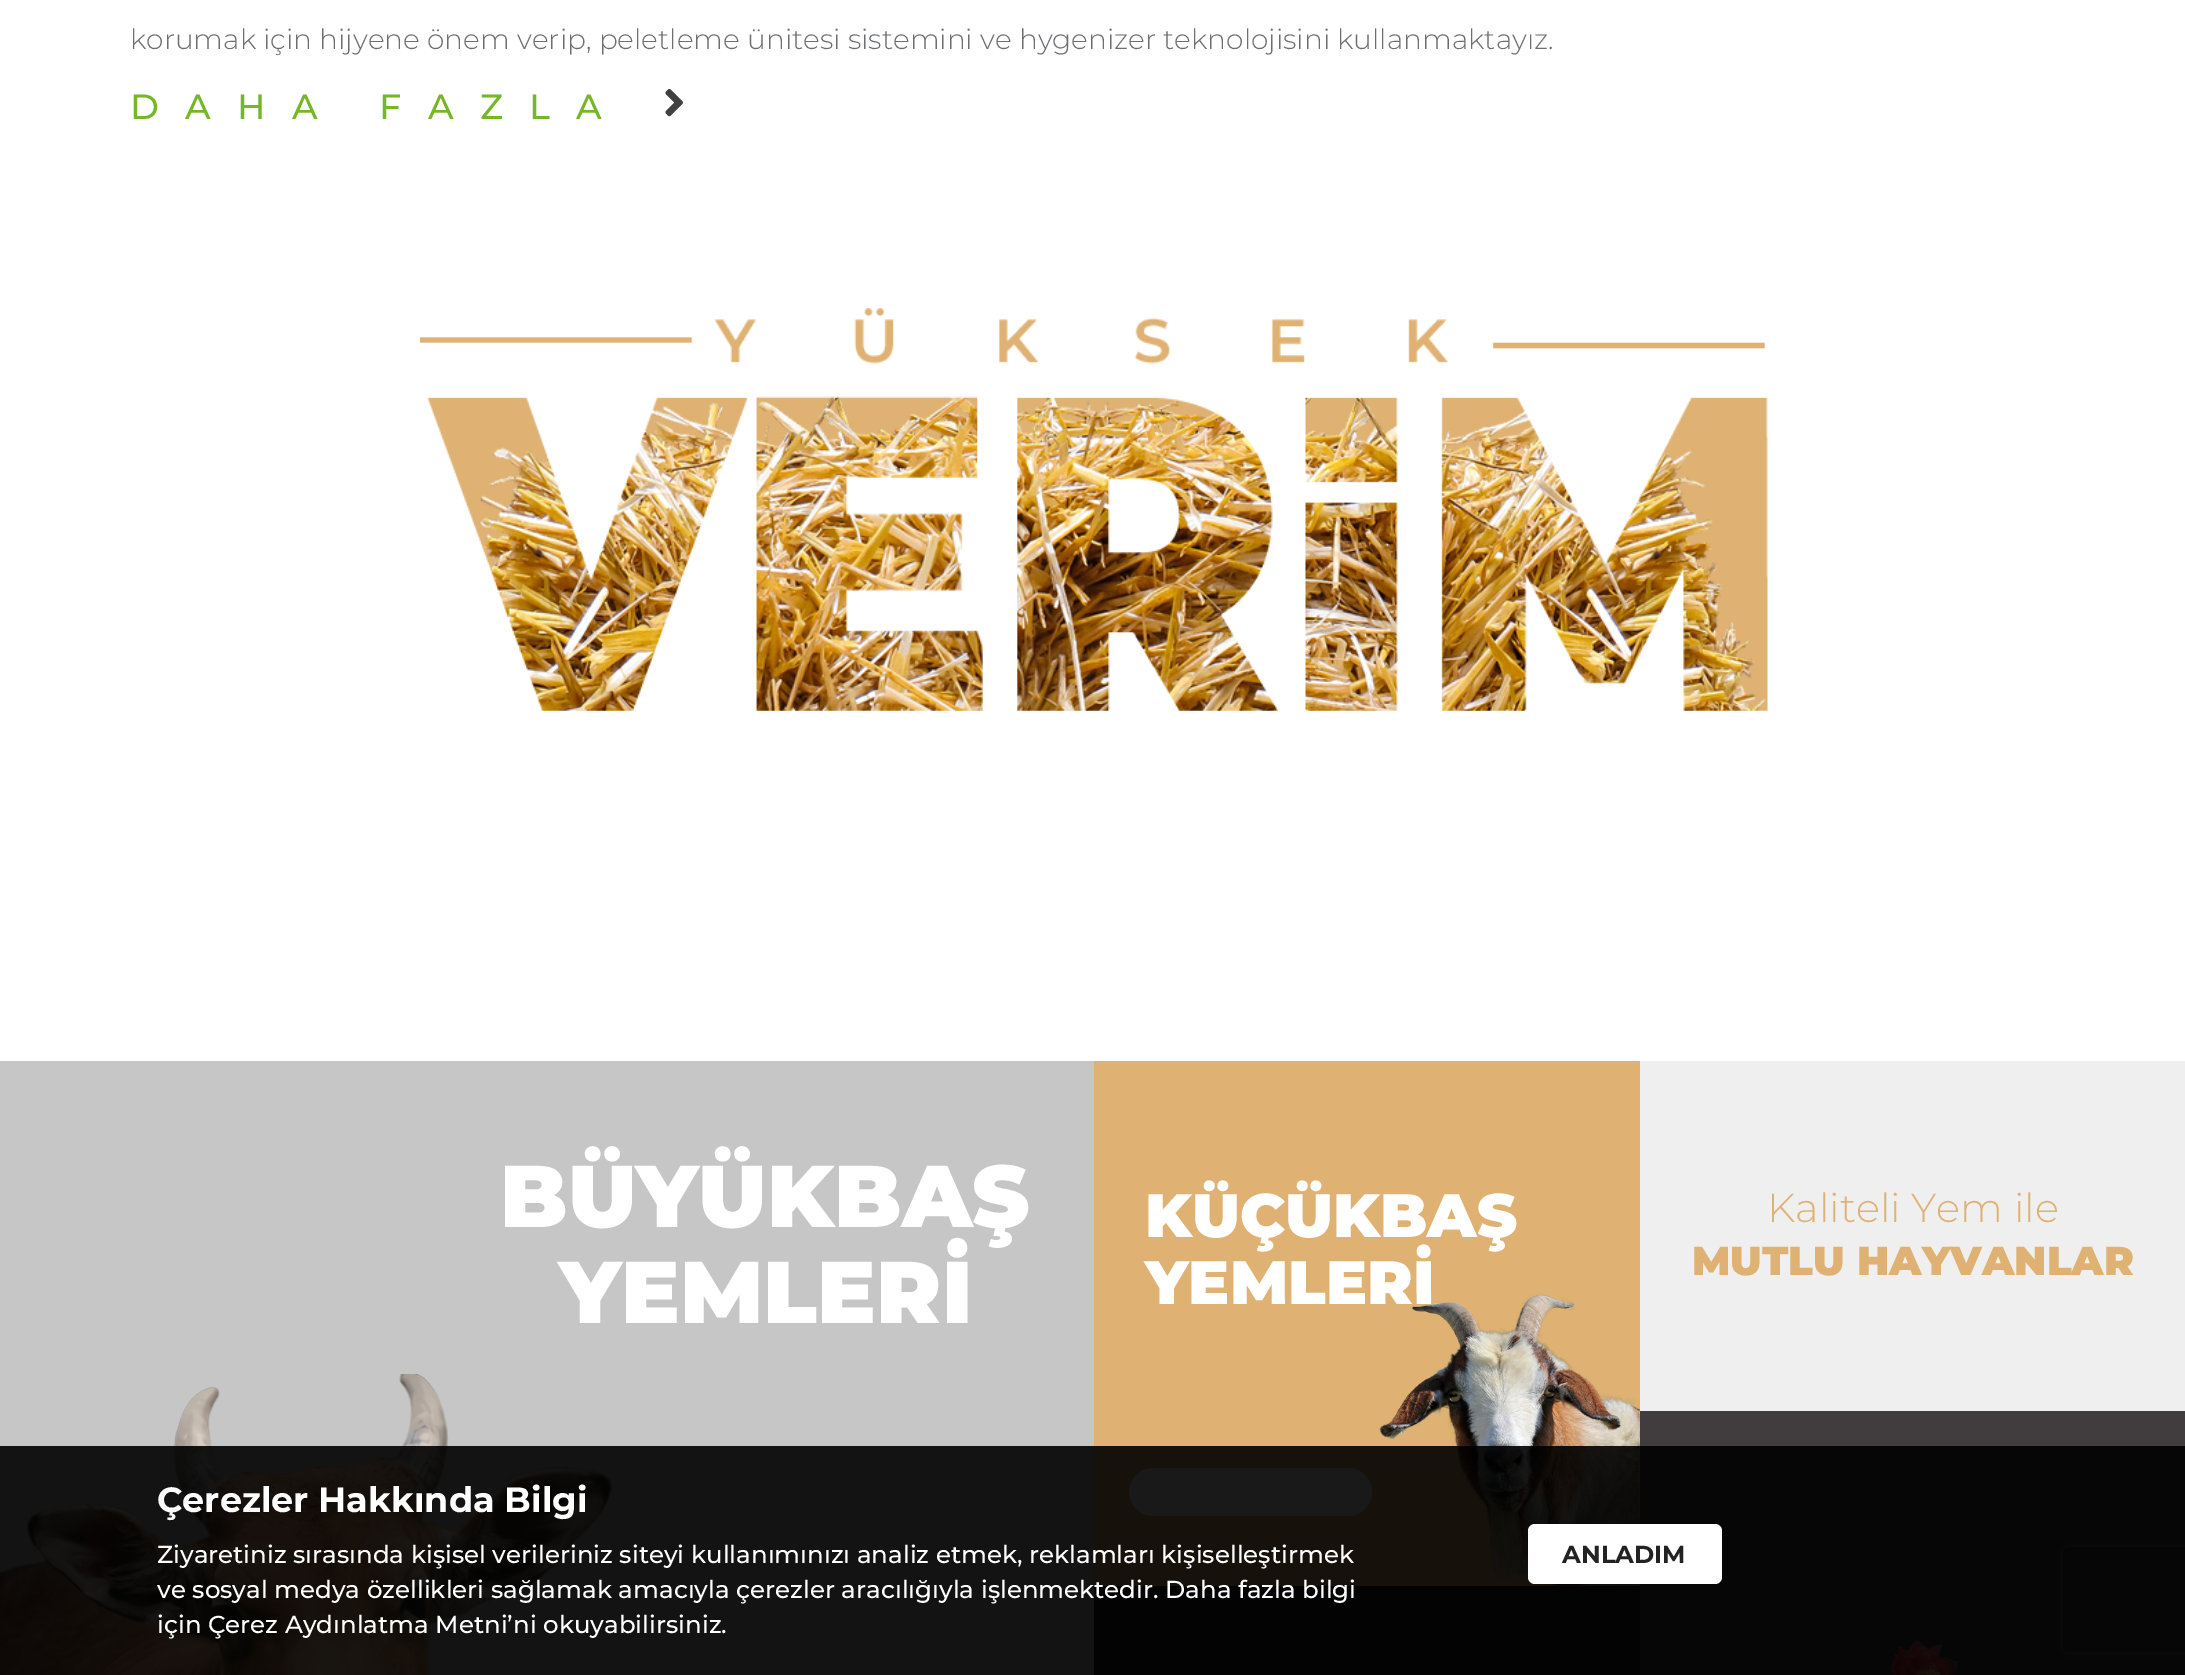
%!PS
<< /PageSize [2185 1675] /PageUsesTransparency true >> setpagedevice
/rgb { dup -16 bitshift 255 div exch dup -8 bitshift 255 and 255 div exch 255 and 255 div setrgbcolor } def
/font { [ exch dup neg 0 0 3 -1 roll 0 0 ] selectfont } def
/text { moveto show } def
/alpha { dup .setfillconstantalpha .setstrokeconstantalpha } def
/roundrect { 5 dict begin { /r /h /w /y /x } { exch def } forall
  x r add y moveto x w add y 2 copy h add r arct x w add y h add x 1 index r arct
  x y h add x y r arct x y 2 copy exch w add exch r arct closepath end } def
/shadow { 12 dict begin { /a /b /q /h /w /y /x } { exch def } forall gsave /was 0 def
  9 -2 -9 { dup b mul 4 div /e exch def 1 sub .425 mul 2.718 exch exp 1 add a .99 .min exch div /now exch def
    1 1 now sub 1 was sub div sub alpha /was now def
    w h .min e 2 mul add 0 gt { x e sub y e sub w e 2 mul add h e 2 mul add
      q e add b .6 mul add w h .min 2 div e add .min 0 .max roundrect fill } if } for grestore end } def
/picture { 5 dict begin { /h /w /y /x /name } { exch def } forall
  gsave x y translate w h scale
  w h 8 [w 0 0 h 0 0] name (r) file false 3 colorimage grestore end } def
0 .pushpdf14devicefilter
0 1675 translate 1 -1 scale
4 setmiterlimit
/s1 { /Montserrat-Light 28 font 16#6D6E71 rgb } def
/s2 { /Montserrat-Black 87.5 font 16#FFFFFF rgb } def
/s3 { /Montserrat-Black 61.25 font 16#FFFFFF rgb } def
/s4 { /Montserrat-Light 40.25 font 16#DFB273 rgb } def
/s5 { /Montserrat-Black 40.25 font 16#DFB273 rgb } def
/s6 { /Montserrat-Bold 35 font 16#FFFFFF rgb } def
/s7 { /Montserrat-Medium 24.5 font 16#FFFFFF rgb } def
/s8 { /Montserrat-Bold 24.5 font 16#222222 rgb } def
16#FFFFFF rgb
0 0 2185 1675 rectfill
s1
(korumak için hijyene önem verip, peletleme ünitesi sistemini ve hygenizer teknolojisini kullanmaktayız.) 130 49 text
/Montserrat-Medium 35 font
16#75B727 rgb
130 119 moveto 26.25 0 (DAHA FAZLA) ashow
(pic1.raw) 665 88 18 29 picture
(pic2.raw) 420 308 1348 403 picture
16#C6C6C6 rgb
0 1061 1094 614 rectfill
s2
(BÜYÜKBAŞ) 500 1227 text
(YEMLERİ) 559 1323 text
(pic3.raw) 0 1374 613 301 picture
16#DFB273 rgb
1094 1061 546 525 rectfill
s3
(KÜÇÜKBAŞ) 1145 1237 text
(YEMLERİ) 1145 1304 text
1129 1468 243 48 24 roundrect fill
(pic4.raw) 1379 1293 261 293 picture
16#EFEFEF rgb
1640 1061 545 350 rectfill
s4
(Kaliteli Yem ile) 1767 1222 text
s5
(MUTLU HAYVANLAR) 1692 1275 text
16#271B21 rgb
1094 1586 546 89 rectfill
16#413D3E rgb
1640 1411 545 264 rectfill
(pic5.raw) 1891 1640 68 35 picture
gsave
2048 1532 moveto 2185 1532 lineto 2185 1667 lineto 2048 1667 lineto closepath 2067 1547 moveto 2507 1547 lineto 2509 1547 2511 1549 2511 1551 curveto 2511 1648 lineto 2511 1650 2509 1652 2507 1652 curveto 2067 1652 lineto 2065 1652 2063 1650 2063 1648 curveto 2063 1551 lineto 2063 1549 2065 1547 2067 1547 curveto closepath eoclip newpath
16#808080 rgb
2063 1547 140 105 4 4.5 1 shadow
grestore
0.9 alpha
16#000000 rgb
0 1446 2185 229 rectfill
1 alpha
s6
(Çerezler Hakkında Bilgi) 157 1512 text
s7
(Ziyaretiniz sırasında kişisel verileriniz siteyi kullanımınızı analiz etmek, reklamları kişiselleştirmek) 157 1563 text
(ve sosyal medya özellikleri sağlamak amacıyla çerezler aracılığıyla işlenmektedir. Daha fazla bilgi) 157 1598 text
(için Çerez Aydınlatma Metni’ni okuyabilirsiniz.) 157 1633 text
1528 1524 194 60 7 roundrect fill
s8
(ANLADIM) 1562 1563 text
.poppdf14devicefilter showpage
